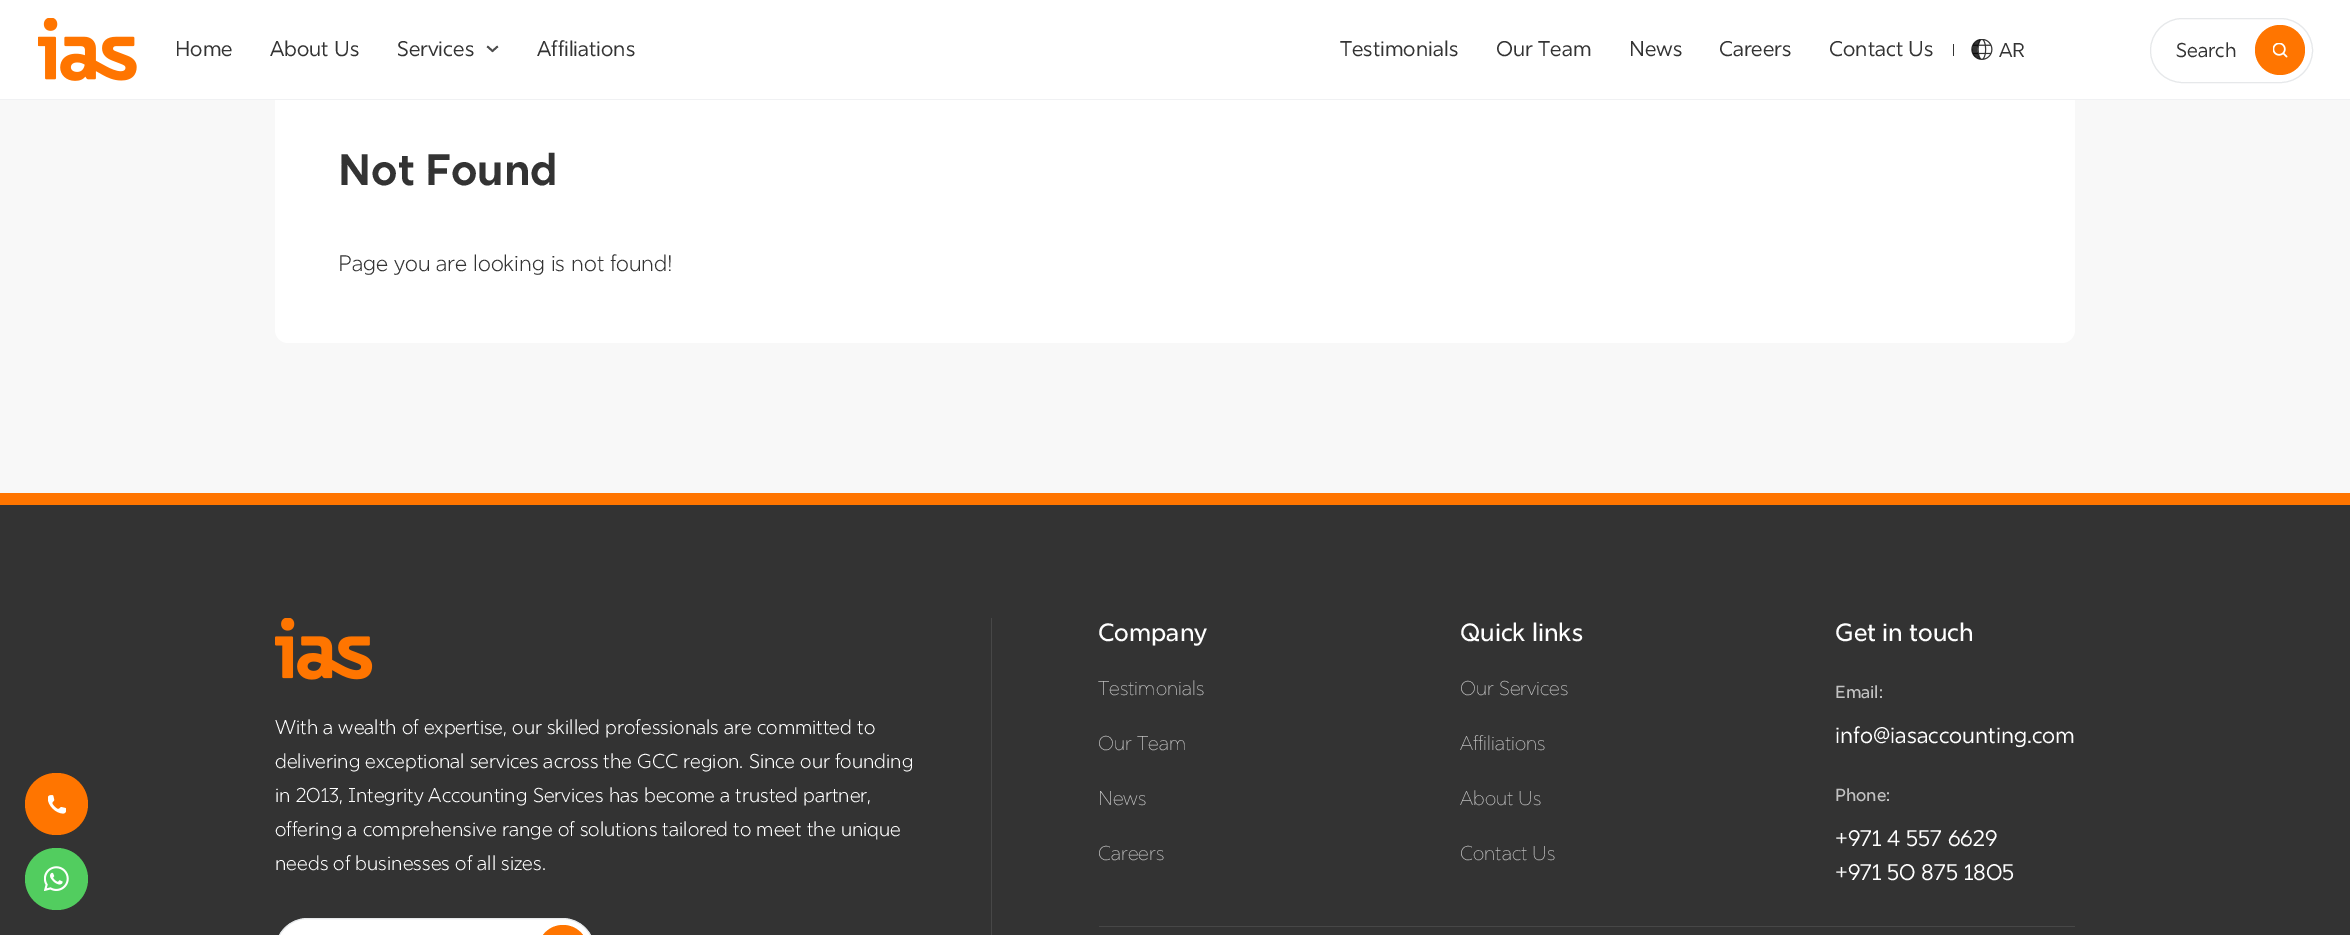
%!PS
<< /PageSize [2350 935] >> setpagedevice
/rgb { dup -16 bitshift 255 div exch dup -8 bitshift 255 and 255 div exch 255 and 255 div setrgbcolor } def
/font { [ exch dup neg 0 0 3 -1 roll 0 0 ] selectfont } def
/text { moveto show } def
/circle { newpath 0 360 arc closepath } def
/roundrect { 5 dict begin { /r /h /w /y /x } { exch def } forall
  x r add y moveto x w add y 2 copy h add r arct x w add y h add x 1 index r arct
  x y h add x y r arct x y 2 copy exch w add exch r arct closepath end } def
/picture { 5 dict begin { /h /w /y /x /name } { exch def } forall
  gsave x y translate w h scale
  w h 8 [w 0 0 h 0 0] name (r) file false 3 colorimage grestore end } def
0 935 translate 1 -1 scale
4 setmiterlimit
/s1 { /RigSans-Regular 21.25 font 16#333333 rgb } def
/s2 { /RigSans-Regular 20 font 16#333333 rgb } def
/s3 { /RigSans-Bold 43.75 font 16#333333 rgb } def
/s4 { /RigSans-Light 22.5 font 16#333333 rgb } def
/s5 { /RigSans-Light 20 font 16#FFFFFF rgb } def
/s6 { /RigSans-Medium 25 font 16#FFFFFF rgb } def
/s7 { /RigSans-Thin 20 font 16#C2C2C2 rgb } def
/s8 { /RigSans-Medium 17.5 font 16#C2C2C2 rgb } def
/s9 { /RigSans-Regular 22.5 font 16#FFFFFF rgb } def
16#F8F8F8 rgb
0 0 2350 935 rectfill
16#FFFFFF rgb
275 81 1800 262 13 roundrect fill
0 0 2350 99 rectfill
16#F0F1F3 rgb
0 99 2350 1 rectfill
(pic1.raw) 38 18 99 63 picture
s1
(Home) 175 56 text
(About Us) 270 56 text
(Services) 397 56 text
16#4D4D4D rgb
1.8 setlinewidth
2 setlinecap
497 47 moveto 492.5 51 lineto 488 47 lineto stroke
s1
(Affiliations) 537 56 text
(Testimonials) 1340 56 text
(Our Team) 1496 56 text
(News) 1629 56 text
(Careers) 1719 56 text
(Contact Us) 1829 56 text
1953 44 1 12 rectfill
(pic2.raw) 1971 39 22 21 picture
s2
(AR) 1999 57 text
16#E6E8EA rgb
1 setlinewidth
0 setlinecap
2150.5 18.5 162 64 32 roundrect stroke
s2
(Search) 2176 57 text
16#FF7500 rgb
2280 50 25 circle fill
(pic3.raw) 2273 43 15 15 picture
s3
(Not Found) 338 185 text
s4
(Page you are looking is not found!) 338 271 text
0 505 2350 430 rectfill
16#FF7500 rgb
0 493 2350 12 rectfill
25 773 63 62 31 roundrect fill
(pic4.raw) 48 795 18 19 picture
16#52CD5F rgb
25 848 63 62 31 roundrect fill
(pic5.raw) 44 866 25 25 picture
16#474747 rgb
991 618 1 317 rectfill
(pic6.raw) 275 618 98 62 picture
s5
(With a wealth of expertise, our skilled professionals are committed to) 275 734 text
(delivering exceptional services across the GCC region. Since our founding) 275 768 text
(in 2013, Integrity Accounting Services has become a trusted partner,) 275 802 text
(offering a comprehensive range of solutions tailored to meet the unique) 275 836 text
(needs of businesses of all sizes.) 275 870 text
275.5 918.5 319 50 32 roundrect gsave fill grestore
16#E6E8EA rgb
stroke
16#FF7500 rgb
538 925 50 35 25 roundrect fill
s6
(Company) 1098 641 text
s7
(Testimonials) 1098 695 text
(Our Team) 1098 750 text
(News) 1098 805 text
(Careers) 1098 860 text
s6
(Quick links) 1460 641 text
s7
(Our Services) 1460 695 text
(Affiliations) 1460 750 text
(About Us) 1460 805 text
(Contact Us) 1460 860 text
s6
(Get in touch) 1835 641 text
s8
(Email:) 1835 698 text
s9
(info@iasaccounting.com) 1835 743 text
s8
(Phone:) 1835 801 text
s9
(+971 4 557 6629) 1835 846 text
(+971 50 875 1805) 1835 880 text
16#474747 rgb
1099 926 976 1 rectfill
showpage
